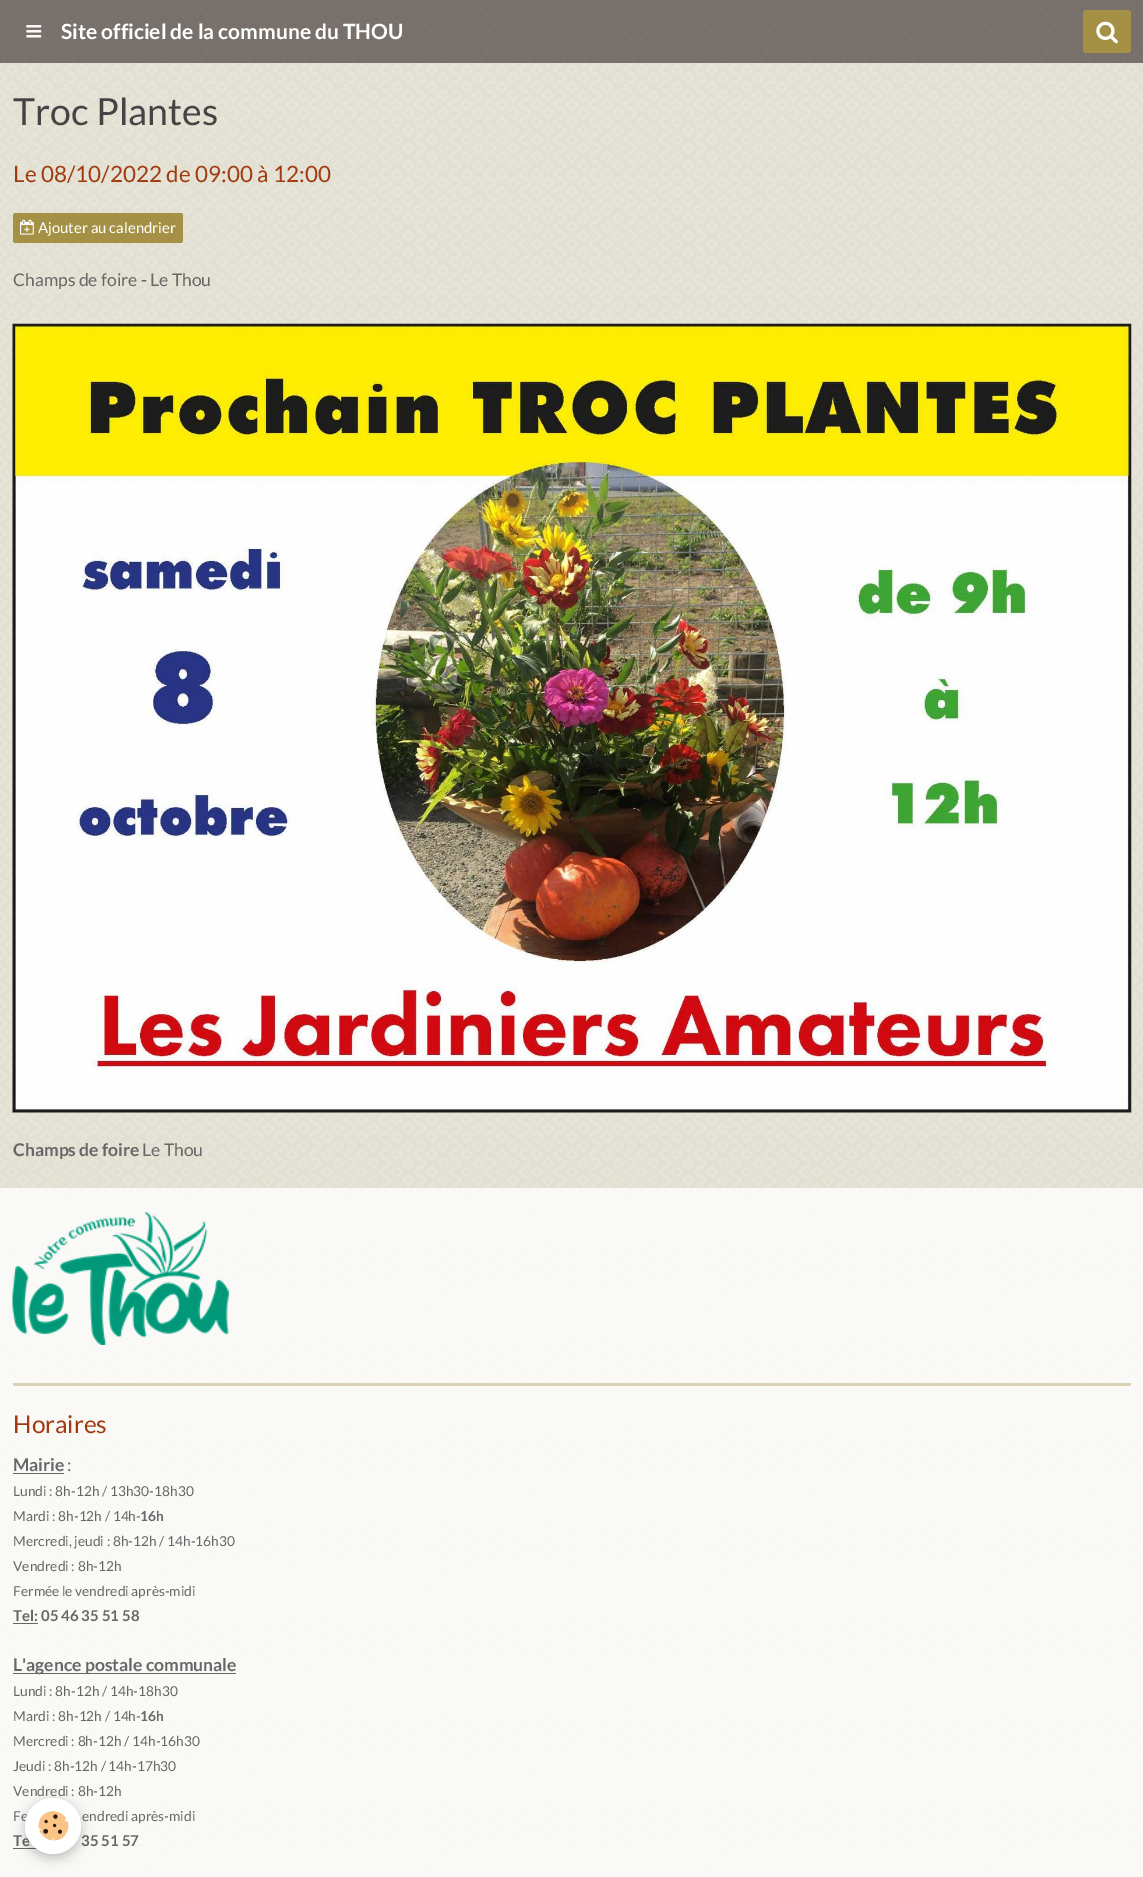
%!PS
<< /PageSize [1143 1877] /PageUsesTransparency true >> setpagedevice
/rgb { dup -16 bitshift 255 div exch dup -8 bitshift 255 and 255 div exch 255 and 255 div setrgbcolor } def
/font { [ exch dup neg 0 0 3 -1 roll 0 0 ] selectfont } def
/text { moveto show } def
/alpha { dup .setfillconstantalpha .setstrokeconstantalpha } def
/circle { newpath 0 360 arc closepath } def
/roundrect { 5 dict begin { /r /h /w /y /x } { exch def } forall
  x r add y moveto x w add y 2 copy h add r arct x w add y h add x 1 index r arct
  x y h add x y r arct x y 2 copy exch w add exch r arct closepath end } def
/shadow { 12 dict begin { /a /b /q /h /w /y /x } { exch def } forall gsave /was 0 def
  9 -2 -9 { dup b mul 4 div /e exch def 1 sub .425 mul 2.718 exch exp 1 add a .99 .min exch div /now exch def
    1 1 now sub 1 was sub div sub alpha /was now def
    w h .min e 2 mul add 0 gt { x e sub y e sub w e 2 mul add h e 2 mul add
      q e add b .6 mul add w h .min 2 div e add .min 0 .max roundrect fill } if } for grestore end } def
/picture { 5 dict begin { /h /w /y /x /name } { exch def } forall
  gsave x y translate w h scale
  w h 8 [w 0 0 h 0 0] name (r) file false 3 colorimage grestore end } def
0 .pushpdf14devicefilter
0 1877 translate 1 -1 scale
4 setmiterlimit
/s1 { /Lato-Bold 21 font 16#FFFFFF rgb } def
/s2 { /Lato-Regular 37.5 font 16#444444 rgb } def
/s3 { /Lato-Regular 22.5 font 16#A13A0F rgb } def
/s4 { /Lato-Regular 14.9 font 16#FFFFFF rgb } def
/s5 { /Lato-Regular 17.5 font 16#676767 rgb } def
/s6 { /Lato-Bold 17.5 font 16#676767 rgb } def
/s7 { /Lato-Regular 24.5 font 16#A13A0F rgb } def
/s8 { /Lato-Regular 13.75 font 16#676767 rgb } def
/s9 { /Lato-Bold 13.75 font 16#676767 rgb } def
/s10 { /Lato-Bold 15 font 16#676767 rgb } def
16#EFECDF rgb
0 0 1143 1877 rectfill
(pic1.raw) 0 0 1143 1877 picture
0.57 alpha
16#271B1B rgb
0 0 1143 63 rectfill
1 alpha
(pic2.raw) 26 25 16 13 picture
s1
(Site officiel de la commune du THOU) 61 39 text
16#A49145 rgb
1083 10 48 43 3 roundrect fill
(pic3.raw) 1096 21 22 23 picture
s2
(Troc Plantes) 13 125 text
s3
(Le 08/10/2022 de 09:00 à 12:00) 13 182 text
16#A49145 rgb
13 213 170 30 2.5 roundrect fill
(pic4.raw) 20 219 14 16 picture
s4
(Ajouter au calendrier) 38 233 text
s5
(Champs de foire - Le Thou) 13 286 text
(pic5.raw) 12 323 1120 790 picture
s6
(Champs de foire) 13 1156 text
s5
(Le Thou) 142 1156 text
0.8 alpha
16#FFFFFF rgb
0 1188 1143 689 rectfill
1 alpha
16#DBD3B5 rgb
13 1383 1118 3 rectfill
(pic6.raw) 12 1212 217 133 picture
s7
(Horaires) 13 1433 text
s6
(Mairie) 13 1471 text
13 1473 51 1 rectfill
s5
(:) 67 1471 text
s8
(Lundi : 8h-12h / 13h30-18h30) 13 1496 text
(Mardi : 8h-12h / 14h-) 13 1521 text
s9
(16h) 140 1521 text
s8
(Mercredi, jeudi : 8h-12h / 14h-16h30) 13 1546 text
(Vendredi : 8h-12h) 13 1571 text
(Fermée le vendredi après-midi) 13 1596 text
s10
(Tel: 05 46 35 51 58) 13 1621 text
13 1623 25 1 rectfill
13 1673 223 1 rectfill
s6
(L'agence postale communale) 13 1671 text
s8
(Lundi : 8h-12h / 14h-18h30) 13 1696 text
(Mardi : 8h-12h / 14h-) 13 1721 text
s9
(16h) 140 1721 text
s8
(Mercredi : 8h-12h / 14h-16h30) 13 1746 text
(Jeudi : 8h-12h / 14h-17h30) 13 1771 text
(Vendredi : 8h-12h) 13 1796 text
(Fe) 13 1821 text
(endredi après-midi) 82 1821 text
s10
(Te) 13 1846 text
13 1848 25 1 rectfill
(35 51 57) 81 1846 text
16#000000 rgb
25 1801 56 57 28 6 0.24 shadow
16#FFFFFF rgb
53 1826 28 circle fill
(pic7.raw) 38 1811 31 30 picture
.poppdf14devicefilter showpage
